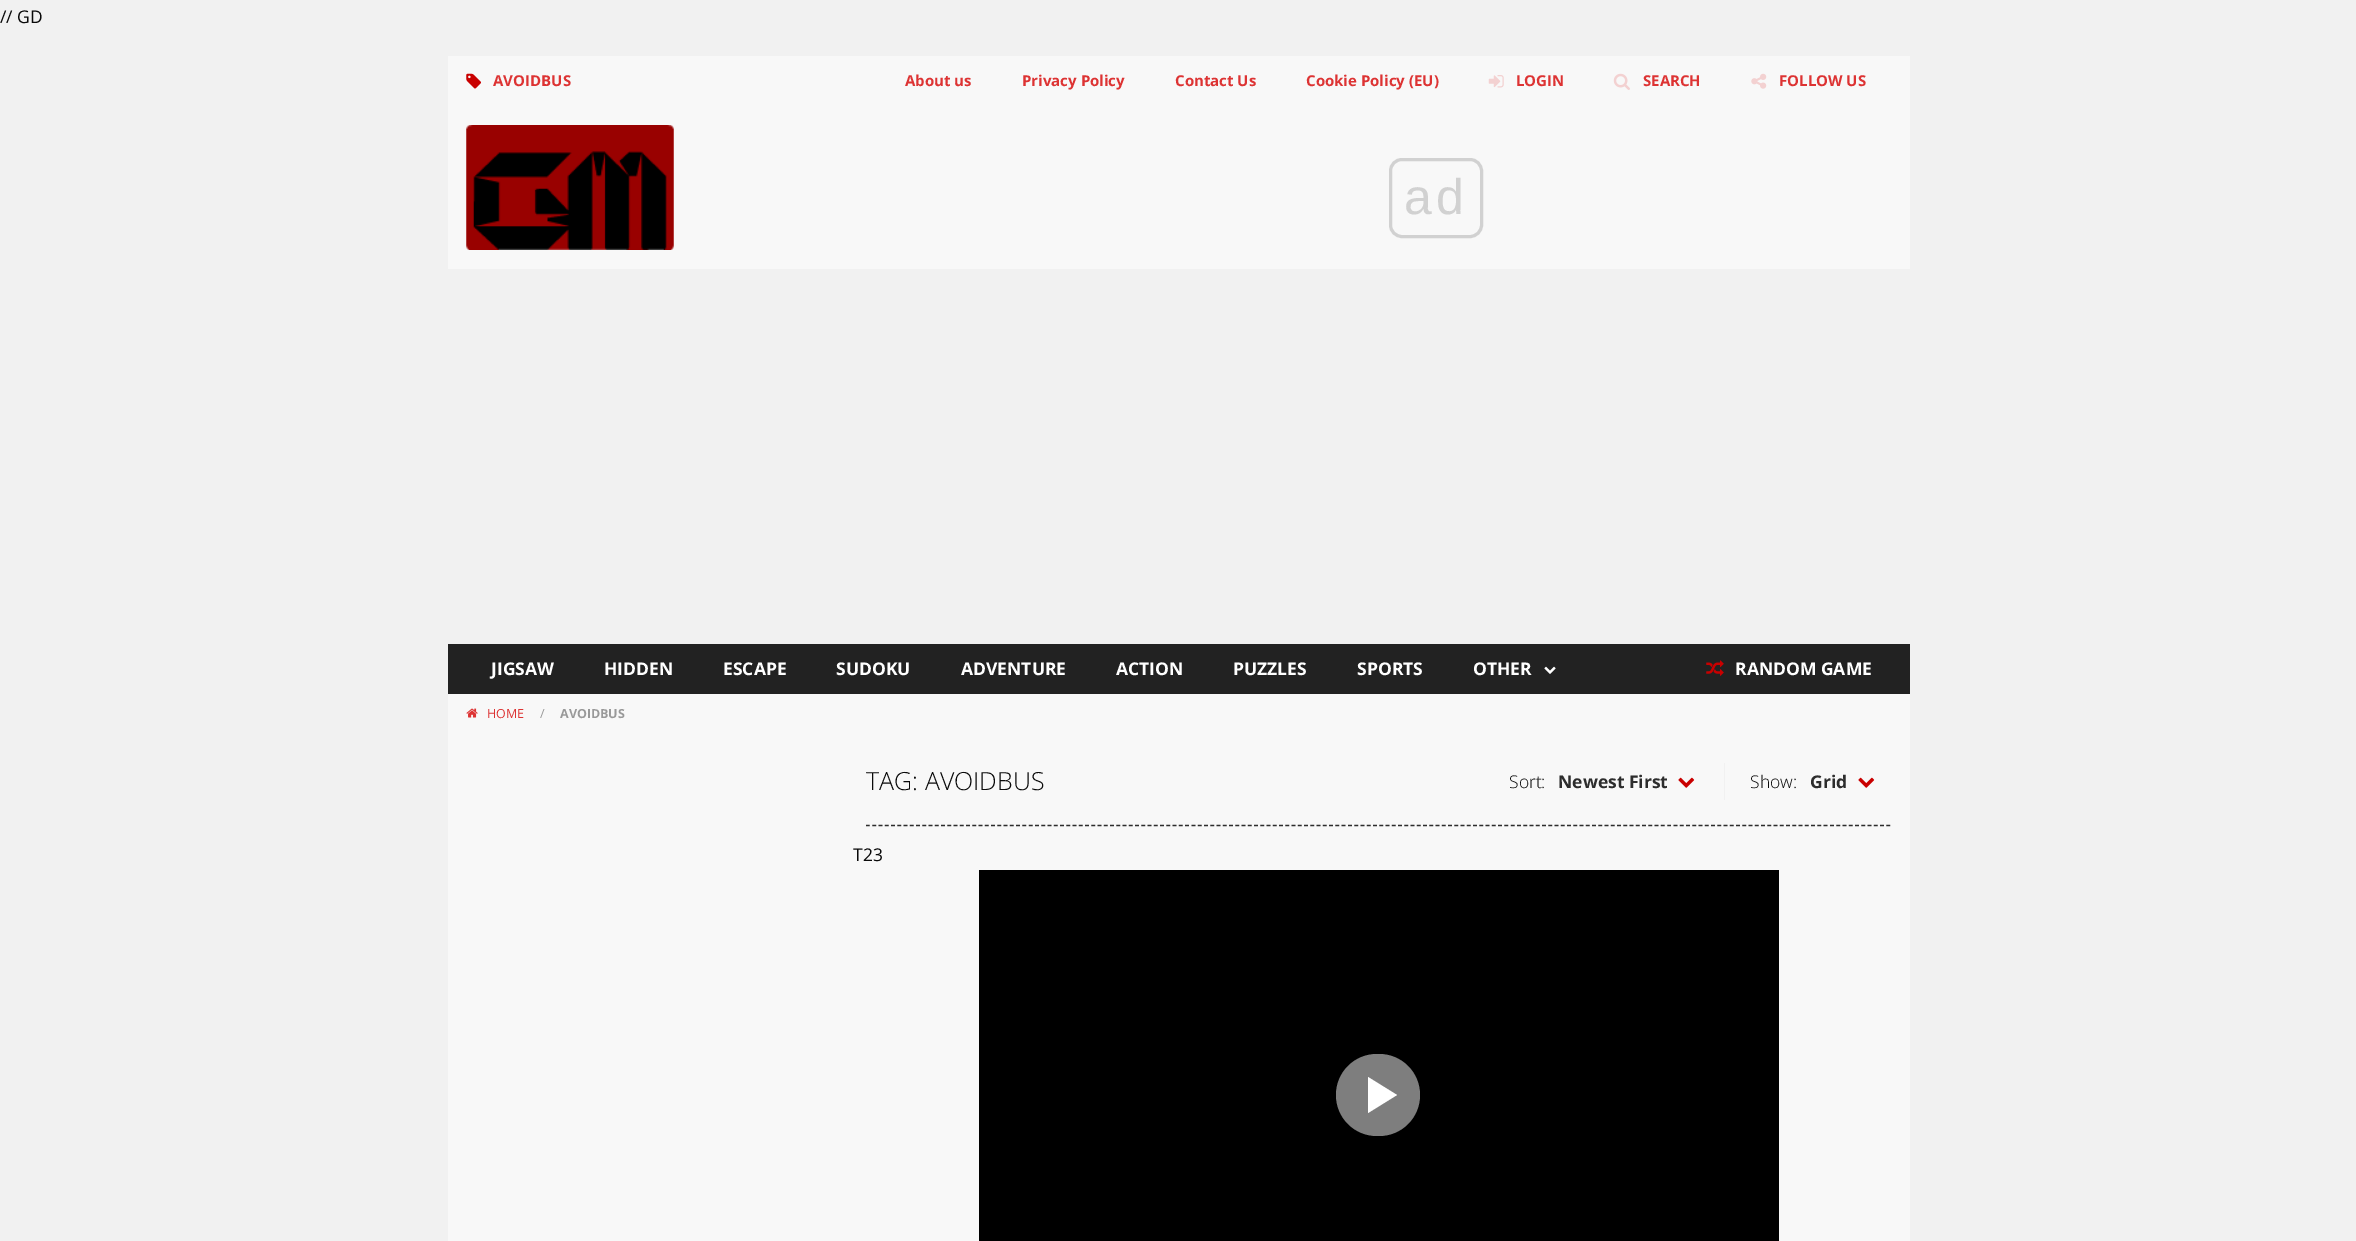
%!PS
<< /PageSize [2356 1241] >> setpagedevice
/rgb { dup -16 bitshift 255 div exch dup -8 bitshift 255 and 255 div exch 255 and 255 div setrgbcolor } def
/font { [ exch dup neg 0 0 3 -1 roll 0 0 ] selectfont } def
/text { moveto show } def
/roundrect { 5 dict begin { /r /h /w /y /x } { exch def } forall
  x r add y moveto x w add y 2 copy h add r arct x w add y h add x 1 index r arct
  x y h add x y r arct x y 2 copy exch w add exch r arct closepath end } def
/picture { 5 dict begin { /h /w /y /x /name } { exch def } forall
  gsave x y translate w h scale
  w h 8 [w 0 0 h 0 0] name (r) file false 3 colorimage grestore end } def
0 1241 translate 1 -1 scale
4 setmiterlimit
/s1 { /OpenSans-Regular 17.5 font 16#0A0A0A rgb } def
/s2 { /OpenSans-Bold 15 font 16#DD3333 rgb } def
/s3 { /OpenSans-Bold 17.5 font 16#FFFFFF rgb } def
/s4 { /OpenSans-Regular 12.5 font 16#DD3333 rgb } def
/s5 { /OpenSans-Regular 12.5 font 16#999999 rgb } def
/s6 { /OpenSans-Bold 12.5 font 16#999999 rgb } def
/s7 { /OpenSans-Light 25 font 16#0A0A0A rgb } def
/s8 { /OpenSans-Light 17.5 font 16#0A0A0A rgb } def
/s9 { /OpenSans-Bold 17.5 font 16#2D2D2D rgb } def
16#F1F1F1 rgb
0 0 2356 1241 rectfill
s1
(// GD) 0 23 text
16#F8F8F8 rgb
448 56 1462 213 rectfill
(pic1.raw) 466 73 15 16 picture
s2
(AVOIDBUS) 493 86 text
(About us) 905 86 text
(Privacy Policy) 1022 86 text
(Contact Us) 1175 86 text
(Cookie Policy \(EU\)) 1306 86 text
(pic2.raw) 1488 75 16 13 picture
(LOGIN) 1516 86 text
(pic3.raw) 1613 73 17 17 picture
(SEARCH) 1643 86 text
(pic4.raw) 1751 73 16 16 picture
(FOLLOW US) 1779 86 text
(pic5.raw) 466 125 208 125 picture
16#D1D1D1 rgb
3 setlinewidth
1390.5 159.5 91 77 11.5 roundrect stroke
/LiberationSans-Regular 50 font
1404 214 moveto 4 0 (ad) ashow
16#222222 rgb
448 644 1462 50 rectfill
s3
(JIGSAW) 491 675 text
(HIDDEN) 604 675 text
(ESCAPE) 723 675 text
(SUDOKU) 836 675 text
(ADVENTURE) 961 675 text
(ACTION) 1116 675 text
(PUZZLES) 1233 675 text
(SPORTS) 1357 675 text
(OTHER) 1473 675 text
(pic6.raw) 1544 666 12 8 picture
(pic7.raw) 1706 660 18 16 picture
(RANDOM GAME) 1735 675 text
16#F8F8F8 rgb
448 694 1462 547 rectfill
(pic8.raw) 466 708 12 10 picture
s4
(HOME) 487 718 text
s5
(/) 540 718 text
s6
(AVOIDBUS) 560 718 text
16#2D2D2D rgb
1.2 setlinewidth
[3.75 2.51] 0 setdash
866 825.5 moveto 1891 825.5 lineto stroke
s7
(TAG: AVOIDBUS) 866 790 text
16#F1F1F1 rgb
1724 763 1 37 rectfill
s8
(Sort:) 1509 788 text
s9
(Newest First) 1558 788 text
(pic9.raw) 1678 777 17 11 picture
s8
(Show:) 1750 788 text
s9
(Grid) 1810 788 text
(pic9.raw) 1858 777 17 11 picture
s1
(T23) 853 861 text
16#000000 rgb
979 870 800 371 rectfill
16#7E7E7E rgb
1336 1054 84 82 41 roundrect fill
16#FFFFFF rgb
1368 1077 moveto 1368 1113 lineto 1397 1095 lineto closepath fill
showpage
